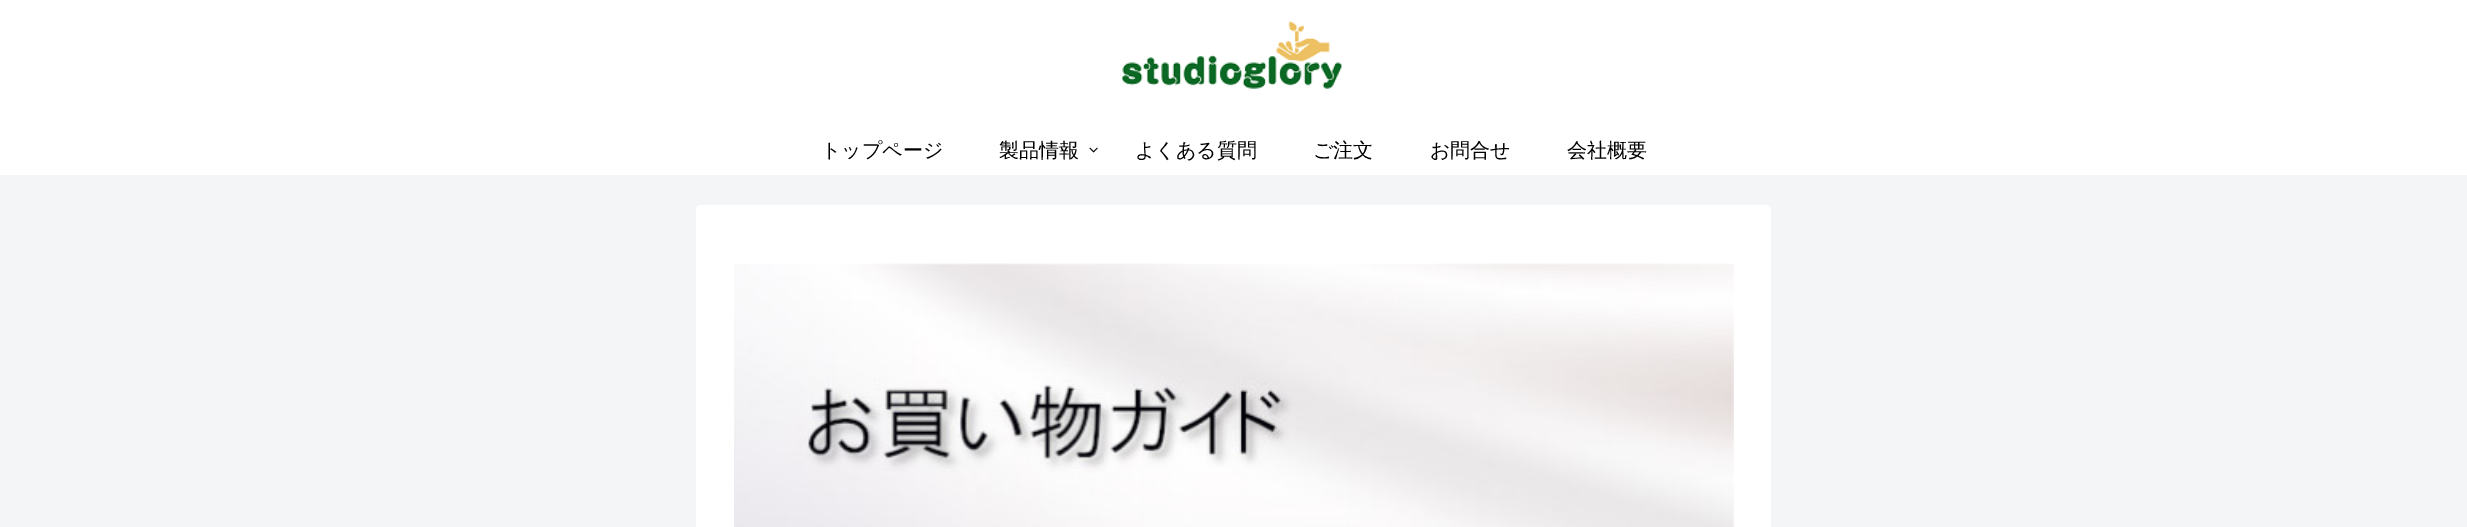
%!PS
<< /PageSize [2467 527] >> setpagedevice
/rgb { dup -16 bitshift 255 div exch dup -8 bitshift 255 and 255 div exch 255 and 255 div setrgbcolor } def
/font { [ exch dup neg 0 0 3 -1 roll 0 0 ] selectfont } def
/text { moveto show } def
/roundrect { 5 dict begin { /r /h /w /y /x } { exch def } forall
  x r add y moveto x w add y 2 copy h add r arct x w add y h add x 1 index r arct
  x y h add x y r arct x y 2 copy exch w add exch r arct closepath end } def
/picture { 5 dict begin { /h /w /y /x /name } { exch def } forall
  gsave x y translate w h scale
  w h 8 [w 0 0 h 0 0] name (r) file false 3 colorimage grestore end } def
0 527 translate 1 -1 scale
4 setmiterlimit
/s1 { /WenQuanYiZenHei-Medium 20 font 16#000000 rgb } def
16#F4F5F7 rgb
0 0 2467 527 rectfill
16#FFFFFF rgb
0 0 2467 175 rectfill
(pic1.raw) 1121 21 222 68 picture
s1
(トップページ) 821 157 text
(製品情報) 999 157 text
(pic2.raw) 1089 147 9 6 picture
(よくある質問) 1135 157 text
(ご注文) 1313 157 text
(お問合せ) 1430 157 text
(会社概要) 1567 157 text
16#FFFFFF rgb
696 205 1075 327 5 roundrect fill
(pic3.raw) 734 263 1000 264 picture
showpage
